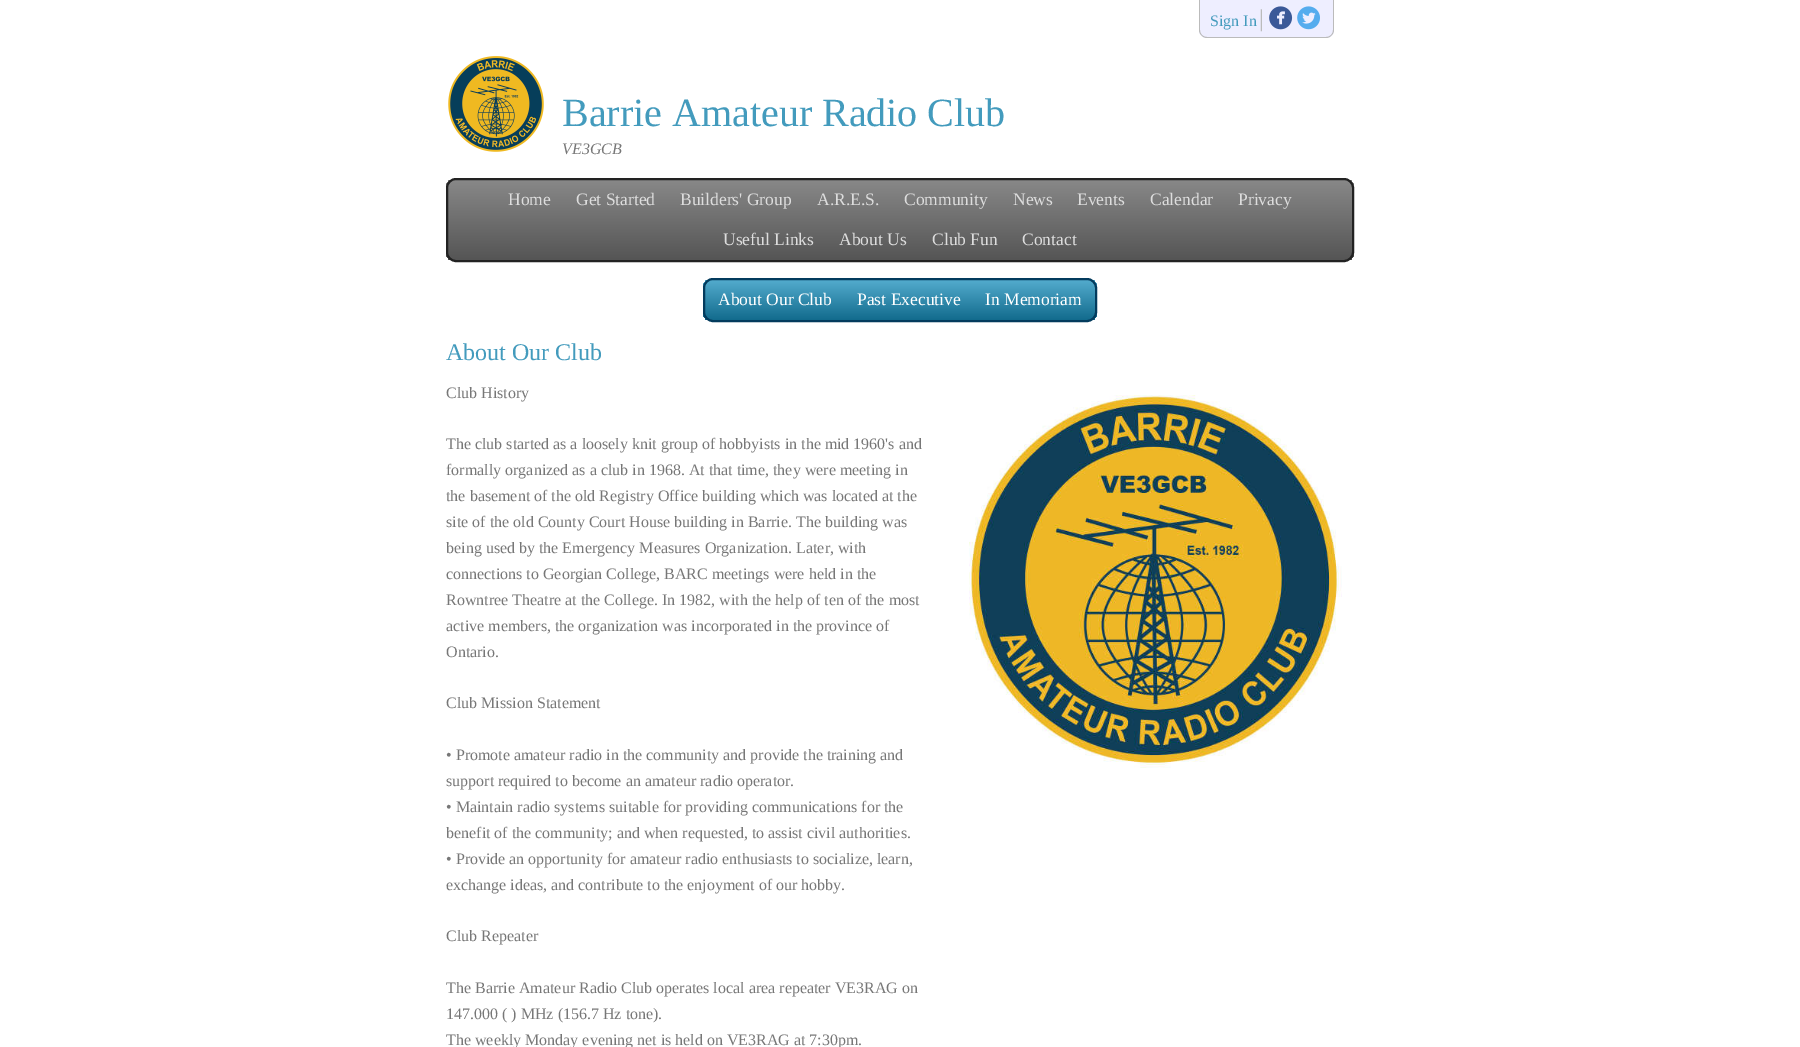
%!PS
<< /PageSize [1800 1047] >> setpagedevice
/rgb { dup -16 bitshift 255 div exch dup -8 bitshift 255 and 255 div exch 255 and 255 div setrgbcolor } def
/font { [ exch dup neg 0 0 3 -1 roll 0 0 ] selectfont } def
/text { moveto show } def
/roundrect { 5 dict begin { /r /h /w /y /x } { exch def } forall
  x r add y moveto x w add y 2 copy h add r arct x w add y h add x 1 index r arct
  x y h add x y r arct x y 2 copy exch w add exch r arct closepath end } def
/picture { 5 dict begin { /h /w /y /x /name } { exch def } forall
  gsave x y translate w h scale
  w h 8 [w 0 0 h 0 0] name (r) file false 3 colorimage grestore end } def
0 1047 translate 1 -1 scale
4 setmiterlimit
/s1 { /LiberationSerif-Regular 16 font 16#439BBD rgb } def
/s2 { /LiberationSerif-Regular 24 font 16#BBBBBB rgb } def
/s3 { /LiberationSerif-Regular 40 font 16#439BBD rgb } def
/s4 { /LiberationSerif-Italic 16 font 16#777777 rgb } def
/s5 { /LiberationSerif-Regular 17.5 font 16#DDDDDD rgb } def
/s6 { /LiberationSerif-Regular 17.5 font 16#FFFFFF rgb } def
/s7 { /LiberationSerif-Regular 24 font 16#439BBD rgb } def
/s8 { /LiberationSerif-Regular 16 font 16#777777 rgb } def
16#FFFFFF rgb
0 0 1800 1047 rectfill
16#EEEEFF rgb
1199 0 moveto 1334 0 lineto 1334 30 lineto 1334 34.5 1330.5 38 1326 38 curveto 1207 38 lineto 1202.5 38 1199 34.5 1199 30 curveto closepath fill
16#BBBBBB rgb
1199 0 moveto 1334 0 lineto 1334 30 lineto 1334 34 1330 38 1326 38 curveto 1207 38 lineto 1203 38 1199 34 1199 30 curveto closepath 1200 0 moveto 1333 0 lineto 1333 30 lineto 1333 34 1330 37 1326 37 curveto 1207 37 lineto 1203 37 1200 34 1200 30 curveto closepath eofill
s1
(Sign In) 1210 26 text
s2
(|) 1259 26 text
(pic1.raw) 1269 6 24 24 picture
(pic2.raw) 1297 6 23 24 picture
(pic3.raw) 448 56 96 96 picture
s3
(Barrie Amateur Radio Club) 562 126 text
s4
(VE3GCB) 562 154 text
gsave
446 178 908 84 10 roundrect clip newpath
gsave 446 180 moveto 1354 180 lineto 1354 260 lineto 446 260 lineto closepath clip newpath
<< /ShadingType 2 /ColorSpace /DeviceRGB /Coords [900 180 900 260] /Extend [true true] /Function << /FunctionType 2 /Domain [0 1] /C0 [0.533 0.533 0.533] /C1 [0.333 0.333 0.333] /N 1 >> >> shfill grestore
grestore
16#222222 rgb
2 setlinewidth
447 179 906 82 9 roundrect stroke
s5
(Home) 508 205 text
(Get Started) 576 205 text
(Builders' Group) 680 205 text
(A.R.E.S.) 817 205 text
(Community) 904 205 text
(News) 1013 205 text
(Events) 1077 205 text
(Calendar) 1150 205 text
(Privacy) 1238 205 text
(Useful Links) 723 245 text
(About Us) 839 245 text
(Club Fun) 932 245 text
(Contact) 1022 245 text
gsave
703 278 394 44 10 roundrect clip newpath
gsave 703 280 moveto 1097 280 lineto 1097 320 lineto 703 320 lineto closepath clip newpath
<< /ShadingType 2 /ColorSpace /DeviceRGB /Coords [900 280 900 320] /Extend [true true] /Function << /FunctionType 2 /Domain [0 1] /C0 [0.325 0.671 0.804] /C1 [0.071 0.42 0.553] /N 1 >> >> shfill grestore
grestore
16#033B5D rgb
704 279 392 42 9 roundrect stroke
s6
(About Our Club) 718 305 text
(Past Executive) 857 305 text
(In Memoriam) 985 305 text
s7
(About Our Club) 446 360 text
s8
(Club History) 446 398 text
(The club started as a loosely knit group of hobbyists in the mid 1960's and) 446 449 text
(formally organized as a club in 1968. At that time, they were meeting in) 446 475 text
(the basement of the old Registry Office building which was located at the) 446 501 text
(site of the old County Court House building in Barrie. The building was) 446 527 text
(being used by the Emergency Measures Organization. Later, with) 446 553 text
(connections to Georgian College, BARC meetings were held in the) 446 579 text
(Rowntree Theatre at the College. In 1982, with the help of ten of the most) 446 605 text
(active members, the organization was incorporated in the province of) 446 631 text
(Ontario.) 446 657 text
(Club Mission Statement) 446 708 text
(• Promote amateur radio in the community and provide the training and) 446 760 text
(support required to become an amateur radio operator.) 446 786 text
(• Maintain radio systems suitable for providing communications for the) 446 812 text
(benefit of the community; and when requested, to assist civil authorities.) 446 838 text
(• Provide an opportunity for amateur radio enthusiasts to socialize, learn,) 446 864 text
(exchange ideas, and contribute to the enjoyment of our hobby.) 446 890 text
(Club Repeater) 446 941 text
(The Barrie Amateur Radio Club operates local area repeater VE3RAG on) 446 993 text
(147.000 \( \) MHz \(156.7 Hz tone\).) 446 1019 text
(The weekly Monday evening net is held on VE3RAG at 7:30pm.) 446 1045 text
(pic4.raw) 969 395 373 373 picture
showpage
